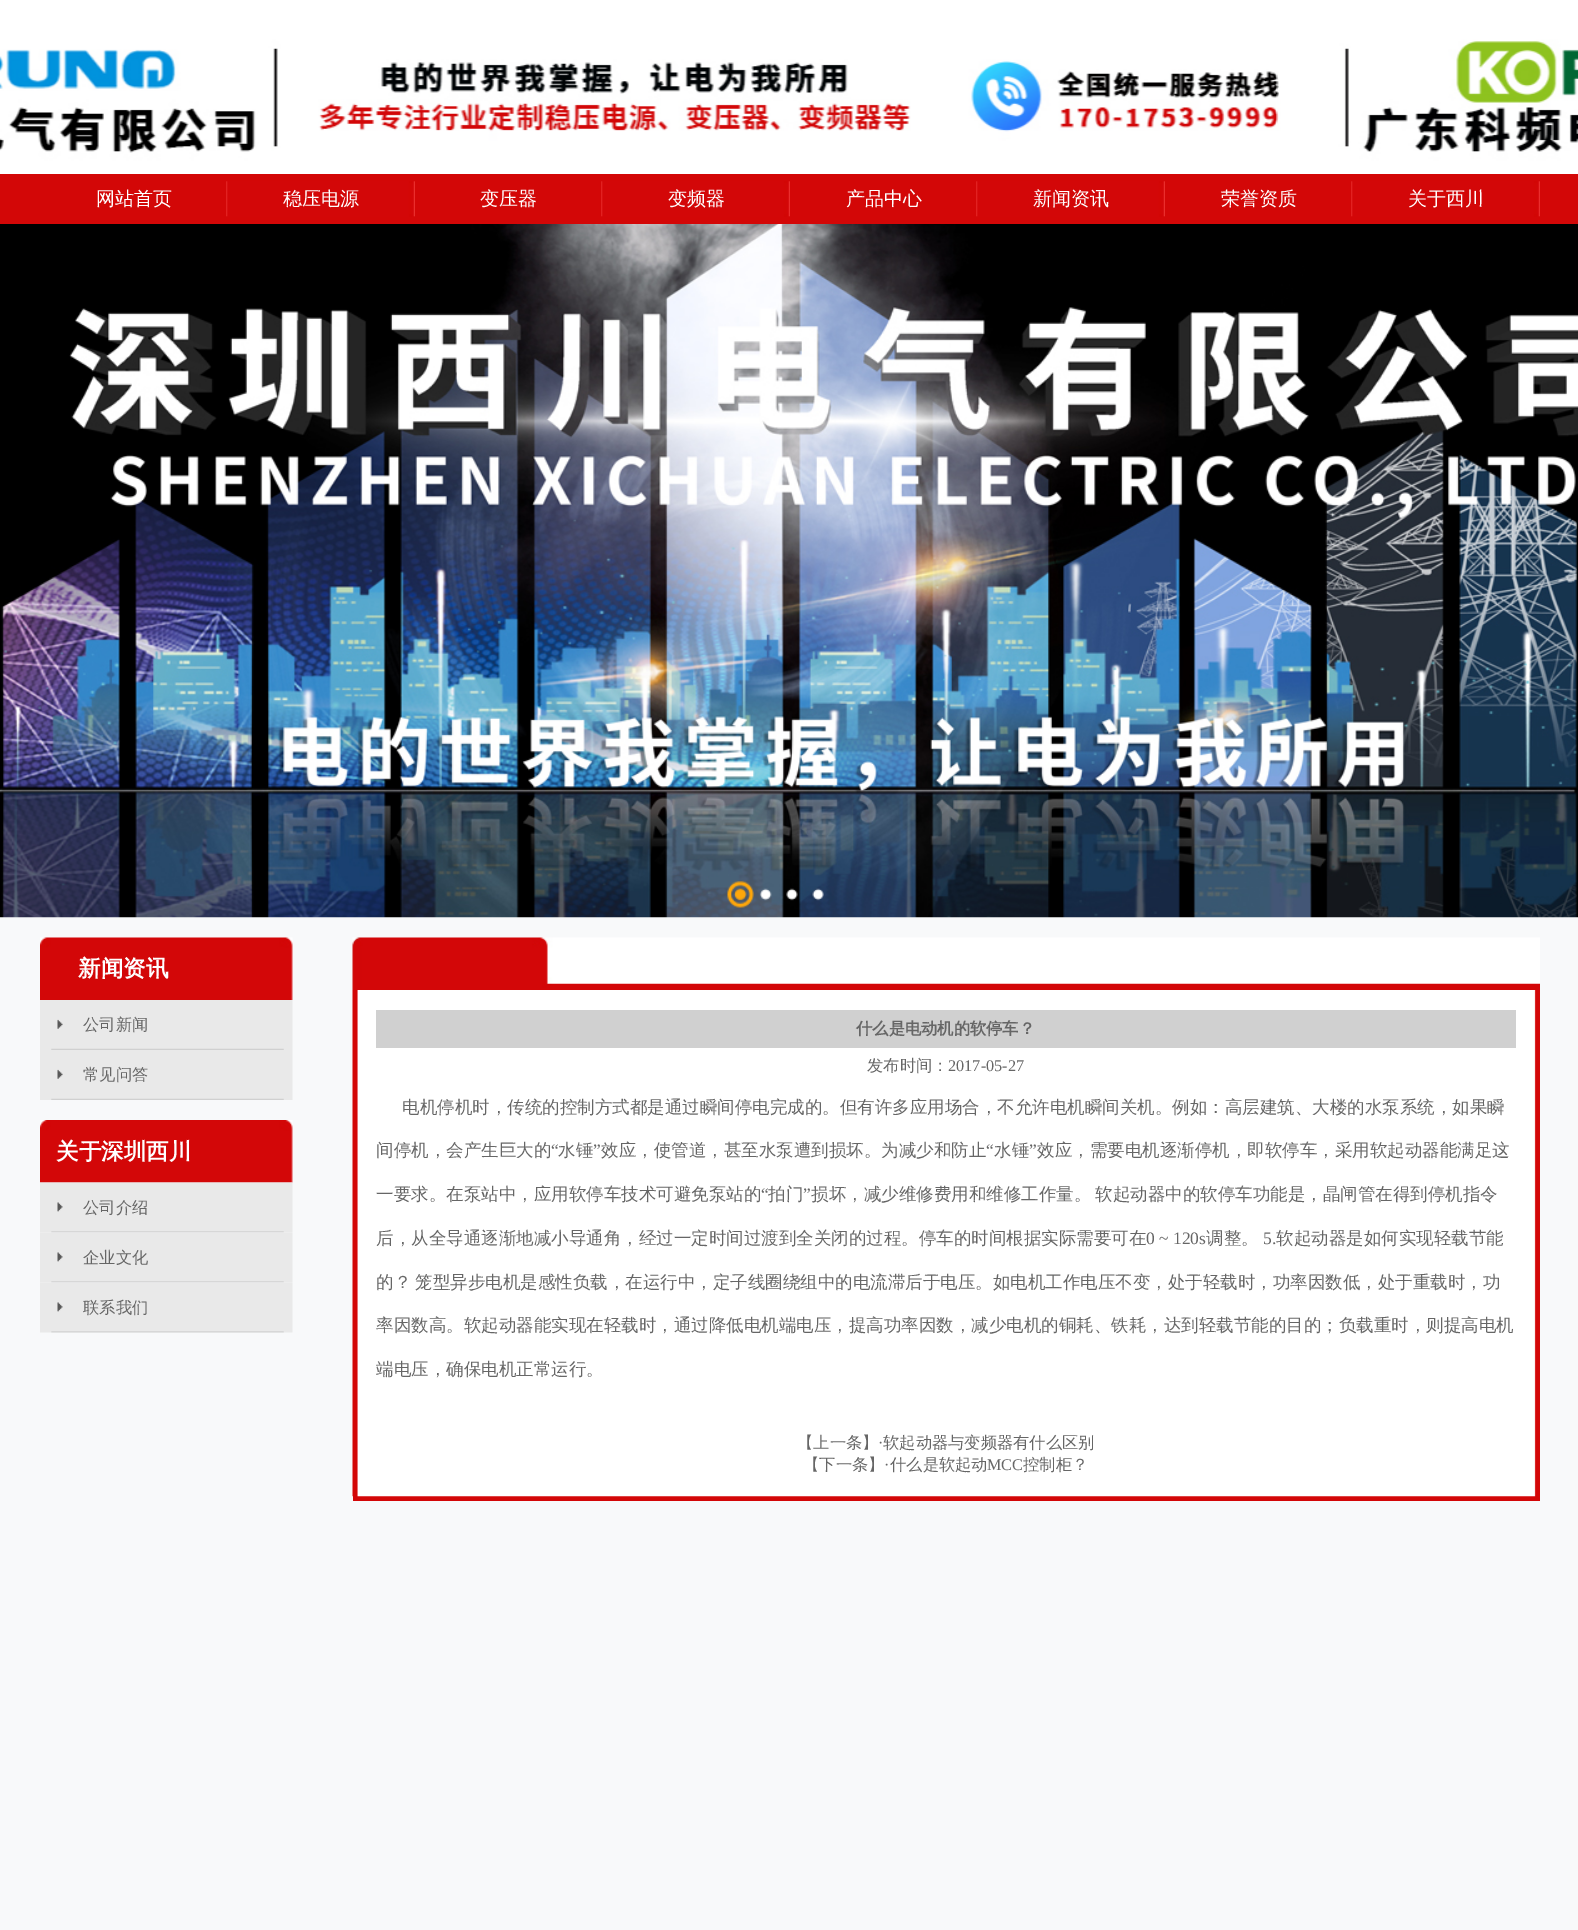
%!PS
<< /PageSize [1578 1930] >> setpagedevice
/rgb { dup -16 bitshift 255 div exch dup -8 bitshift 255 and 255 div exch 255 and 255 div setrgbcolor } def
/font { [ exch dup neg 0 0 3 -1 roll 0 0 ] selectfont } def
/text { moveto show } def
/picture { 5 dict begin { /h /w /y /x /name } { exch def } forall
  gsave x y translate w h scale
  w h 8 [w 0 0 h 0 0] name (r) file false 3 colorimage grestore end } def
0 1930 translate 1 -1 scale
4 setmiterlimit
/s1 { /WenQuanYiZenHei-Medium 19 font 16#FFFFFF rgb } def
/s2 { /WenQuanYiZenHei-Bold 22.5 font 16#FFFFFF rgb } def
/s3 { /WenQuanYiZenHei-Medium 16.25 font 16#666666 rgb } def
/s4 { /WenQuanYiZenHei-Bold 16.25 font 16#666666 rgb } def
/s5 { /LiberationSerif-Regular 16.25 font 16#666666 rgb } def
/s6 { /WenQuanYiZenHei-Medium 17.5 font 16#666666 rgb } def
/s7 { /LiberationSerif-Regular 17.5 font 16#666666 rgb } def
16#F8F9FA rgb
0 0 1578 1930 rectfill
(pic1.raw) 0 0 1578 174 picture
16#D30707 rgb
0 174 1578 50 rectfill
(pic2.raw) 226 181 2 36 picture
s1
(网站首页) 96 205 text
(pic3.raw) 227 181 188 36 picture
(稳压电源) 283 205 text
(pic2.raw) 601 181 2 36 picture
(变压器) 480 205 text
(pic3.raw) 602 181 188 36 picture
(变频器) 668 205 text
(pic2.raw) 976 181 2 36 picture
(产品中心) 846 205 text
(pic3.raw) 977 181 188 36 picture
(新闻资讯) 1033 205 text
(pic2.raw) 1351 181 2 36 picture
(荣誉资质) 1221 205 text
(pic3.raw) 1352 181 188 36 picture
(关于西川) 1408 205 text
(pic4.raw) 0 224 1578 694 picture
(pic5.raw) 727 881 27 27 picture
(pic6.raw) 759 888 13 13 picture
(pic7.raw) 786 888 12 13 picture
(pic8.raw) 812 888 12 13 picture
(pic9.raw) 40 937 253 63 picture
s2
(新闻资讯) 78 976 text
(pic10.raw) 40 1000 253 50 picture
s3
(公司新闻) 83 1030 text
(pic10.raw) 40 1050 253 50 picture
(常见问答) 83 1080 text
(pic11.raw) 40 1120 253 63 picture
s2
(关于深圳西川) 56 1159 text
(pic12.raw) 40 1182 253 51 picture
s3
(公司介绍) 83 1213 text
(pic13.raw) 40 1232 253 51 picture
(企业文化) 83 1263 text
(pic13.raw) 40 1282 253 51 picture
(联系我们) 83 1313 text
16#D30708 rgb
353 990 1187 511 rectfill
(pic14.raw) 352 937 1188 53 picture
(pic15.raw) 352 990 1184 507 picture
16#D0D0D0 rgb
376 1010 1140 38 rectfill
s4
(什么是电动机的软停车？) 856 1034 text
s3
(发布时间：) 867 1071 text
s5
(2017-05-27) 948 1071 text
s6
(电机停机时，传统的控制方式都是通过瞬间停电完成的。但有许多应用场合，不允许电机瞬间关机。例如：高层建筑、大楼的水泵系统，如果瞬) 402 1113 text
(间停机，会产生巨大的) 376 1156 text
s7
(“) 551 1156 text
s6
(水锤) 558 1156 text
s7
(”) 593 1156 text
s6
(效应，使管道，甚至水泵遭到损坏。为减少和防止) 601 1156 text
s7
(“) 986 1156 text
s6
(水锤) 994 1156 text
s7
(”) 1029 1156 text
s6
(效应，需要电机逐渐停机，即软停车，采用软起动器能满足这) 1037 1156 text
(一要求。在泵站中，应用软停车技术可避免泵站的) 376 1200 text
s7
(“) 761 1200 text
s6
(拍门) 768 1200 text
s7
(”) 803 1200 text
/WenQuanYiZenHei-Medium 17.5 font
811 1200 moveto -1 0 32 (损坏，减少维修费用和维修工作量。 软起动器中的软停车功能是，晶闸管在得到停机指令) widthshow
(后，从全导通逐渐地减小导通角，经过一定时间过渡到全关闭的过程。停车的时间根据实际需要可在) 376 1244 text
s7
(0 ~ 120s) 1146 1244 text
s6
(调整。) 1206 1244 text
s7
(5.) 1263 1244 text
s6
(软起动器是如何实现轻载节能) 1276 1244 text
376 1288 moveto -1 0 32 (的？ 笼型异步电机是感性负载，在运行中，定子线圈绕组中的电流滞后于电压。如电机工作电压不变，处于轻载时，功率因数低，处于重载时，功) widthshow
(率因数高。软起动器能实现在轻载时，通过降低电机端电压，提高功率因数，减少电机的铜耗、铁耗，达到轻载节能的目的；负载重时，则提高电机) 376 1331 text
(端电压，确保电机正常运行。) 376 1375 text
s3
(【上一条】) 797 1448 text
s5
(·) 878 1448 text
s3
(软起动器与变频器有什么区别) 883 1448 text
(【下一条】) 803 1470 text
s5
(·) 884 1470 text
s3
(什么是软起动) 890 1470 text
s5
(MCC) 987 1470 text
s3
(控制柜？) 1023 1470 text
showpage
